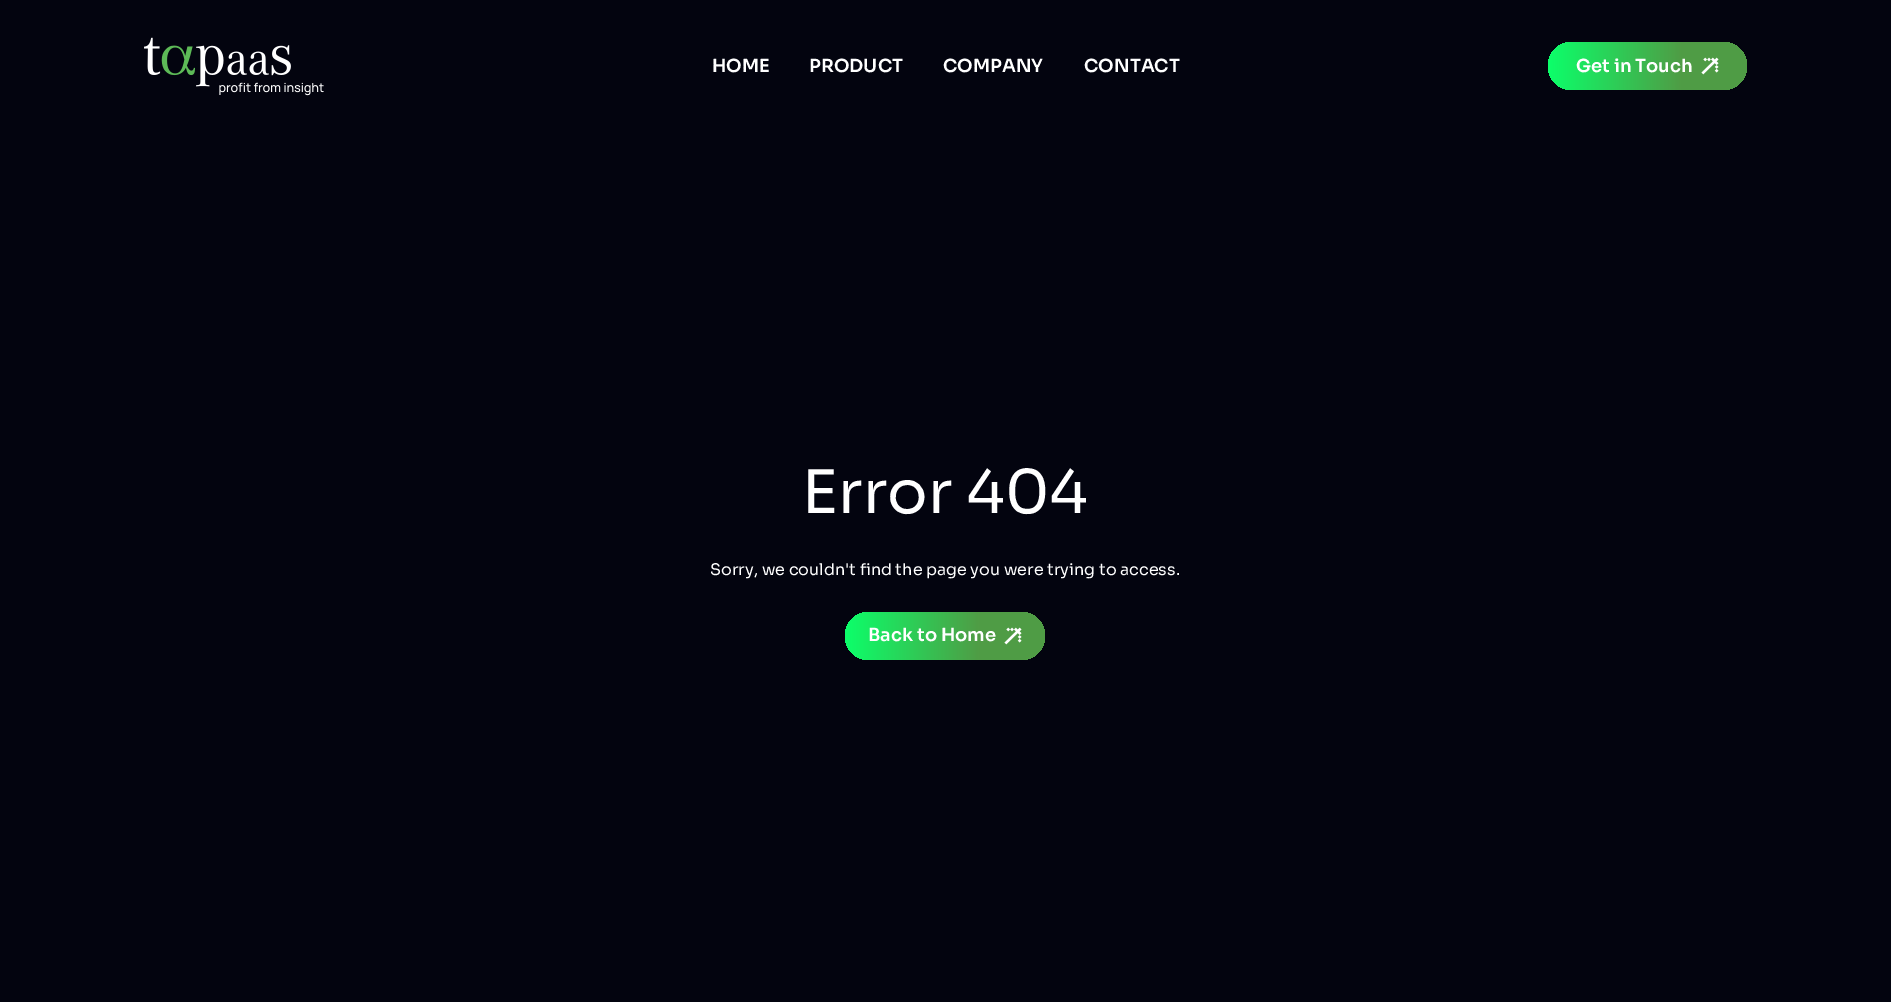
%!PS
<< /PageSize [1891 1002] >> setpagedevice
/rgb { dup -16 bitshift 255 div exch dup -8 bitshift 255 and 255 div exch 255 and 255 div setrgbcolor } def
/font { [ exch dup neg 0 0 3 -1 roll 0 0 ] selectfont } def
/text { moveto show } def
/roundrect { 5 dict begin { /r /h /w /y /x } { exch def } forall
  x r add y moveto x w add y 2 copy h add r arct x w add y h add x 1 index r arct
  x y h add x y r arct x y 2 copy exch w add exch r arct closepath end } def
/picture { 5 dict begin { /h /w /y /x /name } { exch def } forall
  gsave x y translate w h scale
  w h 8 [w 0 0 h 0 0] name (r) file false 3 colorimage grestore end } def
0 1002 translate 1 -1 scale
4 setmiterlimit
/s1 { /Sora-SemiBold 18 font 16#FFFFFF rgb } def
/s2 { /Sora-Regular 60 font 16#FFFFFF rgb } def
/s3 { /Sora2-Regular 16 font 16#FFFFFF rgb } def
16#03040F rgb
0 0 1891 1002 rectfill
(pic1.raw) 144 37 180 59 picture
s1
(HOME) 712 72 text
(PRODUCT) 809 72 text
(COMPANY) 943 72 text
(CONTACT) 1084 72 text
gsave 1548 42 199 48 24 roundrect clip newpath
<< /ShadingType 2 /ColorSpace /DeviceRGB /Coords [1548 66 1747 66] /Extend [true true] /Function << /FunctionType 3 /Domain [0 1] /Functions [<< /FunctionType 2 /Domain [0 1] /C0 [0.047 1 0.416] /C1 [0.31 0.612 0.271] /N 1 >> << /FunctionType 2 /Domain [0 1] /C0 [0.31 0.612 0.271] /C1 [0.31 0.612 0.271] /N 1 >>] /Bounds [0.67] /Encode [0 1 0 1] >> >> shfill grestore
(Get in Touch) 1576 72 text
(pic2.raw) 1701 57 18 18 picture
s2
(Error 404) 802 513 text
s3
(Sorry, we couldn't find the page you were trying to access.) 710 575 text
gsave 845 612 200 48 24 roundrect clip newpath
<< /ShadingType 2 /ColorSpace /DeviceRGB /Coords [845 636 1045 636] /Extend [true true] /Function << /FunctionType 3 /Domain [0 1] /Functions [<< /FunctionType 2 /Domain [0 1] /C0 [0.047 1 0.416] /C1 [0.31 0.612 0.271] /N 1 >> << /FunctionType 2 /Domain [0 1] /C0 [0.31 0.612 0.271] /C1 [0.31 0.612 0.271] /N 1 >>] /Bounds [0.67] /Encode [0 1 0 1] >> >> shfill grestore
s1
(Back to Home) 868 641 text
(pic2.raw) 1004 627 18 18 picture
showpage
